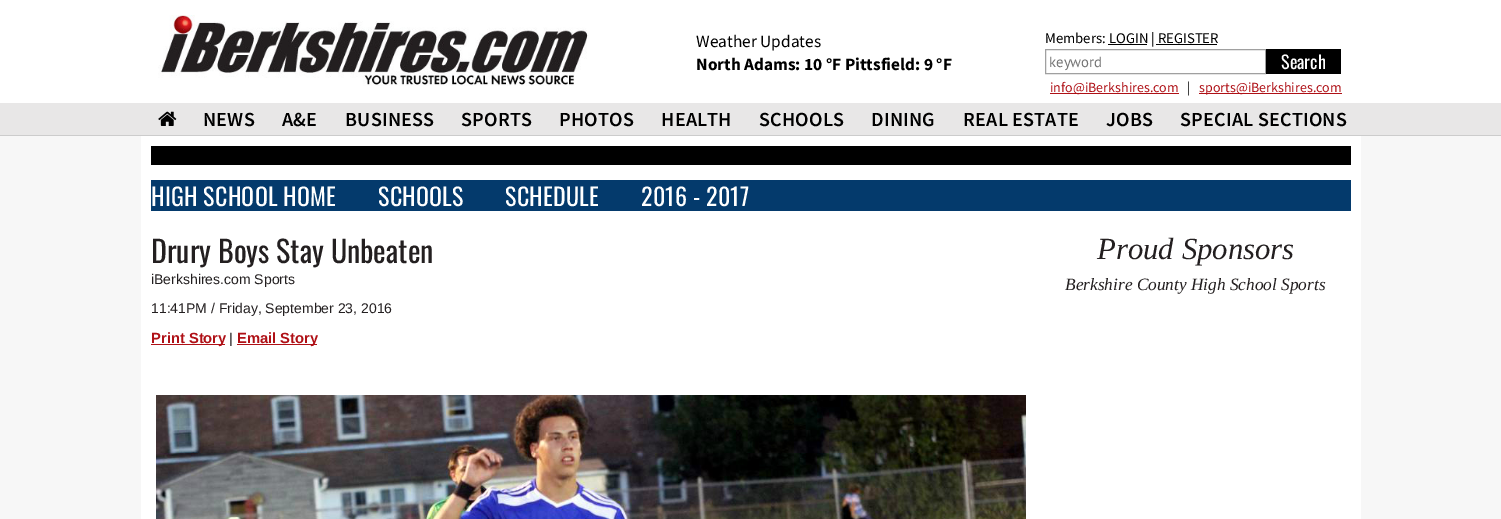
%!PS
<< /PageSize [1501 519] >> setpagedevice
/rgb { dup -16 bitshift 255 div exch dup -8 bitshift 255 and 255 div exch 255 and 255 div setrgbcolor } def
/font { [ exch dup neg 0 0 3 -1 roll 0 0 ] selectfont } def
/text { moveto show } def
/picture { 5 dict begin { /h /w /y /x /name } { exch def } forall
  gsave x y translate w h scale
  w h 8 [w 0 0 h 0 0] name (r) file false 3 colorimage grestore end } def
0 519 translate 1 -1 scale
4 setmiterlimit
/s1 { /SourceSansPro-Regular 17.3 font 16#000000 rgb } def
/s2 { /SourceSansPro-Bold 17.3 font 16#000000 rgb } def
/s3 { /SourceSansPro-Regular 14.75 font 16#000000 rgb } def
/s4 { /PTSans-Regular 14.75 font 16#757575 rgb } def
/s5 { /Oswald-Regular 18 font 16#FFFFFF rgb } def
/s6 { /SourceSansPro-Regular 14 font 16#AF1016 rgb } def
/s7 { /SourceSansPro-Regular 14 font 16#000000 rgb } def
/s8 { /Oswald-Regular 30 font 16#231F20 rgb } def
/s9 { /LiberationSans-Regular 14 font 16#231F20 rgb } def
/s10 { /LiberationSans-Bold 14.75 font 16#AF1016 rgb } def
/s11 { /LiberationSerif-Italic 30.75 font 16#231F20 rgb } def
/s12 { /LiberationSerif-Italic 17.3 font 16#231F20 rgb } def
16#F7F7F7 rgb
0 0 1501 519 rectfill
16#FFFFFF rgb
0 0 1501 103 rectfill
(pic1.raw) 158 15 431 71 picture
s1
(Weather Updates) 696 47 text
s2
(North Adams: 10 °F Pittsfield: 9 °F) 696 70 text
s3
(Members: LOGIN | REGISTER) 1045 43 text
1108 44 39 1 rectfill
1156 44 61 1 rectfill
16#A0A0A0 rgb
1045.5 49.5 220 24 rectstroke
s4
(keyword) 1049 67 text
16#000000 rgb
1266 49 75 25 rectfill
s5
(Search) 1281 69 text
16#AF1016 rgb
1050 93 129 1 rectfill
s6
(info@iBerkshires.com) 1050 92 text
s7
(|) 1187 92 text
16#AF1016 rgb
1199 93 143 1 rectfill
(sports@iBerkshires.com) 1199 92 text
16#E8E7E7 rgb
0 103 1501 32 rectfill
16#CCCCCC rgb
0 135 1501 1 rectfill
(pic2.raw) 158 111 19 15 picture
/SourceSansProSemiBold-SemiBold 20 font
16#000000 rgb
203 126 moveto 0.25 0 (NEWS) ashow
282 126 moveto 0.25 0 (A&E) ashow
345 126 moveto 0.25 0 (BUSINESS) ashow
461 126 moveto 0.25 0 (SPORTS) ashow
559 126 moveto 0.25 0 (PHOTOS) ashow
661 126 moveto 0.25 0 (HEALTH) ashow
759 126 moveto 0.25 0 (SCHOOLS) ashow
871 126 moveto 0.25 0 (DINING) ashow
963 126 moveto 0.25 0 (REAL ESTATE) ashow
1106 126 moveto 0.25 0 (JOBS) ashow
1180 126 moveto 0.25 0 (SPECIAL SECTIONS) ashow
16#FFFFFF rgb
141 136 1220 383 rectfill
16#000000 rgb
151 146 1200 19 rectfill
16#043A6C rgb
151 180 1200 31 rectfill
/Oswald-Regular 24 font
16#FFFFFF rgb
151 206 moveto 0.25 0 (HIGH SCHOOL HOME) ashow
378 206 moveto 0.25 0 (SCHOOLS) ashow
505 206 moveto 0.25 0 (SCHEDULE) ashow
641 206 moveto 0.25 0 (2016 - 2017) ashow
s8
(Drury Boys Stay Unbeaten) 151 263 text
s9
(iBerkshires.com Sports) 151 284 text
(11:41PM / Friday, September 23, 2016) 151 313 text
16#AF1016 rgb
151 344 74 1 rectfill
s10
(Print Story) 151 343 text
s9
(|) 229 343 text
16#AF1016 rgb
237 344 80 1 rectfill
s10
(Email Story) 237 343 text
(pic3.raw) 156 395 870 124 picture
s11
(Proud Sponsors) 1097 259 text
s12
(Berkshire County High School Sports) 1065 290 text
showpage
